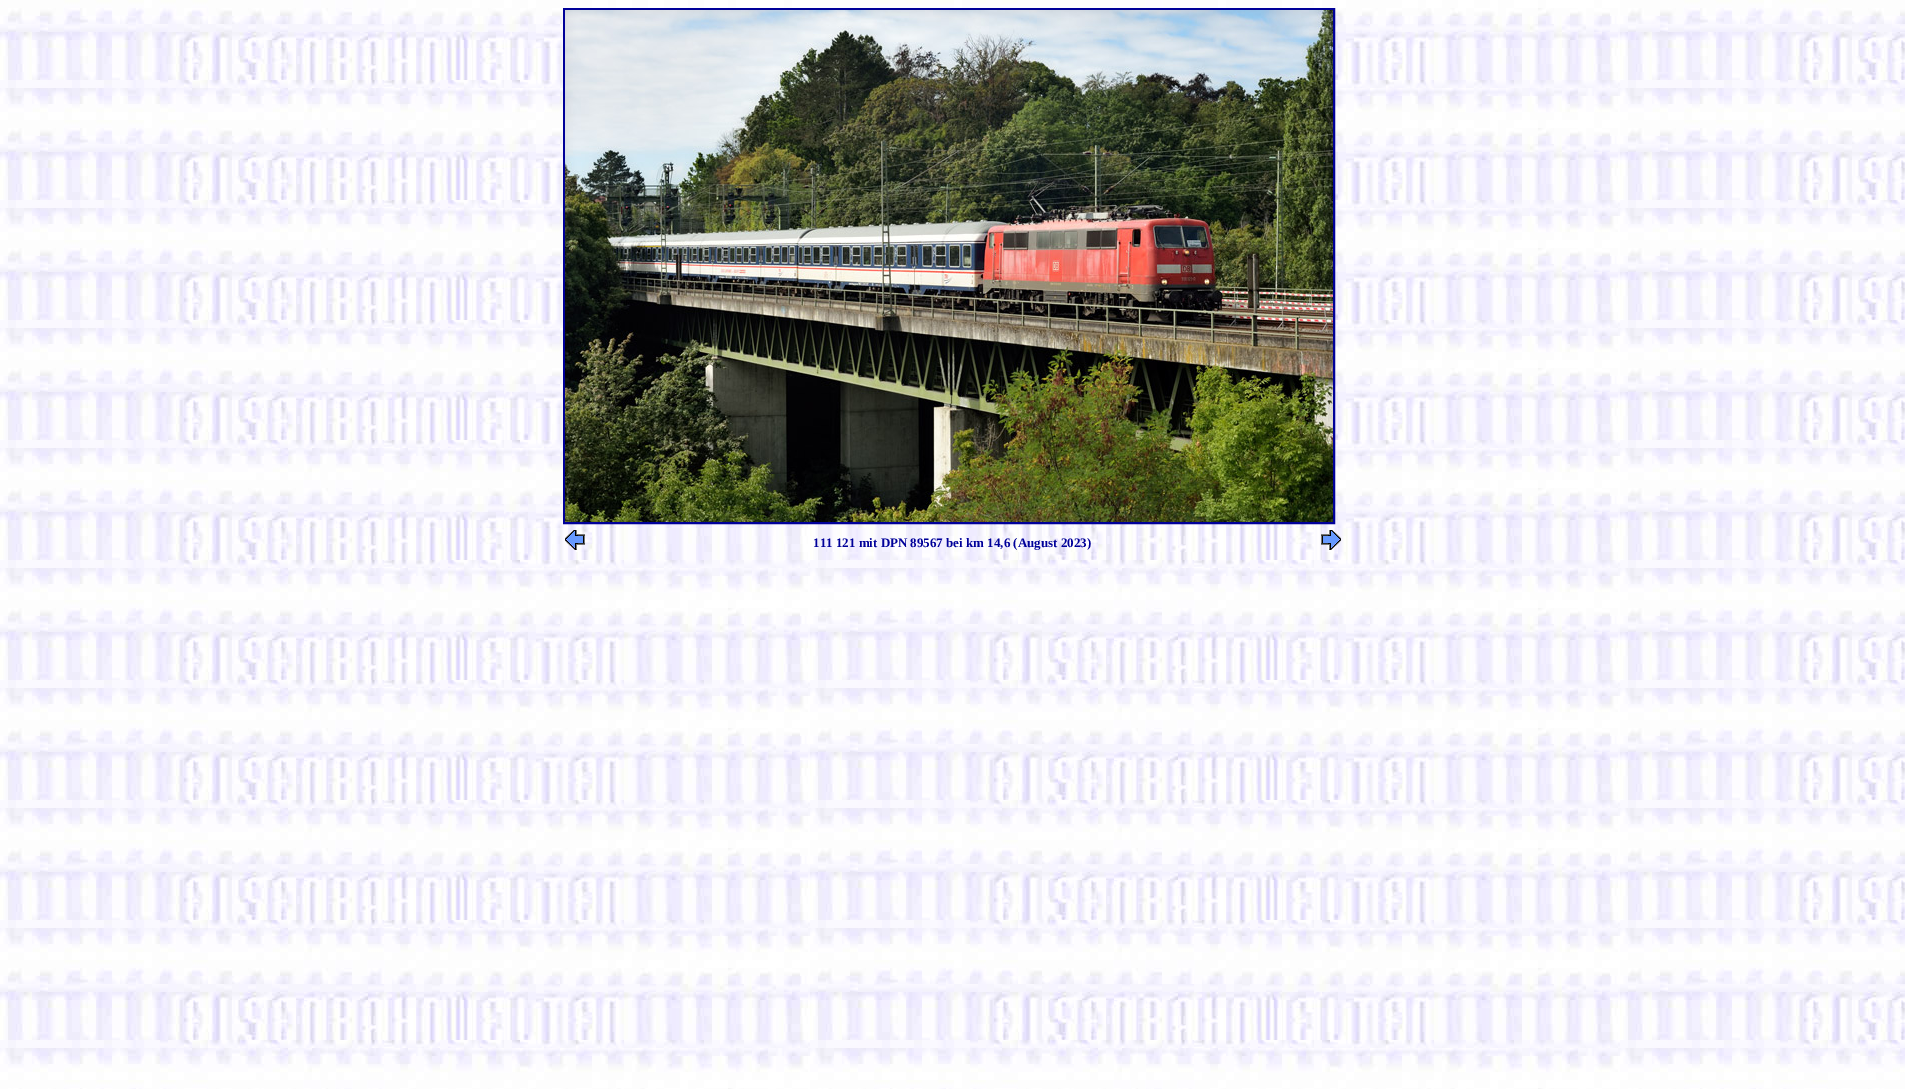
%!PS
<< /PageSize [1905 1089] >> setpagedevice
/rgb { dup -16 bitshift 255 div exch dup -8 bitshift 255 and 255 div exch 255 and 255 div setrgbcolor } def
/font { [ exch dup neg 0 0 3 -1 roll 0 0 ] selectfont } def
/text { moveto show } def
/picture { 5 dict begin { /h /w /y /x /name } { exch def } forall
  gsave x y translate w h scale
  w h 8 [w 0 0 h 0 0] name (r) file false 3 colorimage grestore end } def
0 1089 translate 1 -1 scale
4 setmiterlimit
/s1 { /LiberationSerif-Bold 13 font 16#000099 rgb } def
16#FFFFFF rgb
0 0 1905 1089 rectfill
(pic1.raw) 0 0 1905 1089 picture
16#000099 rgb
2 setlinewidth
564 9 770 514 rectstroke
(pic2.raw) 565 10 768 512 picture
(pic3.raw) 565 530 20 20 picture
s1
(111 121 mit DPN 89567 bei km 14,6 \(August 2023\)) 813 547 text
(pic4.raw) 1321 530 20 20 picture
showpage
